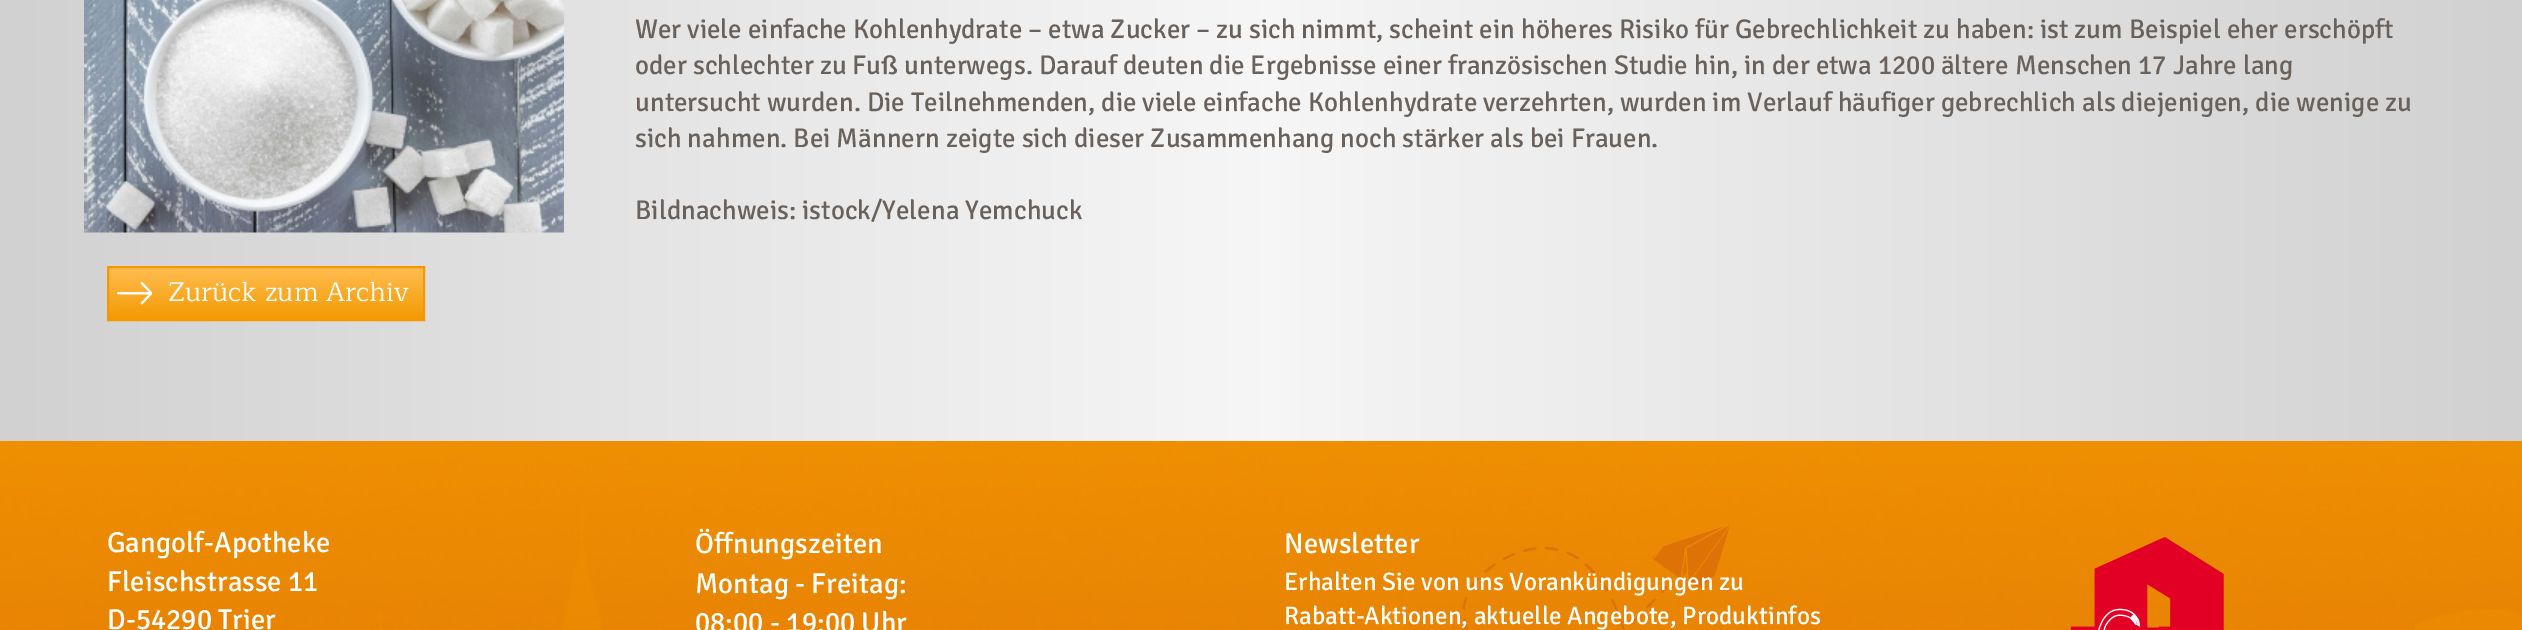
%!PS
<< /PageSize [2522 630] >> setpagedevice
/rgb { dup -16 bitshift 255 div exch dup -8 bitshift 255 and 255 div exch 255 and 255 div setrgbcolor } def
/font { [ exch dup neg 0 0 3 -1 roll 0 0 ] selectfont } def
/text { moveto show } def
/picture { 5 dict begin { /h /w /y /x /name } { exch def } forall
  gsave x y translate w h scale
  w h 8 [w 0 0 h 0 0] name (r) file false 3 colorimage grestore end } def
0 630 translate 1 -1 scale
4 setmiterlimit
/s1 { /Signika-Regular 27 font 16#69615B rgb } def
/s2 { /Maitree-Regular 27 font 16#FFFFFF rgb } def
/s3 { /Signika-Regular 28.75 font 16#FFFFFF rgb } def
/s4 { /Signika-Regular 25.2 font 16#FFFFFF rgb } def
16#FFFFFF rgb
0 0 2522 630 rectfill
gsave 0 0 moveto 2522 0 lineto 2522 441 lineto 0 441 lineto closepath clip newpath
<< /ShadingType 2 /ColorSpace /DeviceRGB /Coords [0 -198 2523 -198] /Extend [true true] /Function << /FunctionType 3 /Domain [0 1] /Functions [<< /FunctionType 2 /Domain [0 1] /C0 [0.82 0.82 0.82] /C1 [0.965 0.965 0.965] /N 1 >> << /FunctionType 2 /Domain [0 1] /C0 [0.965 0.965 0.965] /C1 [0.82 0.82 0.82] /N 1 >>] /Bounds [0.5] /Encode [0 1 0 1] >> >> shfill grestore
(pic1.raw) 84 0 480 233 picture
s1
(Wer viele einfache Kohlenhydrate – etwa Zucker – zu sich nimmt, scheint ein höheres Risiko für Gebrechlichkeit zu haben: ist zum Beispiel eher erschöpft) 635 38 text
(oder schlechter zu Fuß unterwegs. Darauf deuten die Ergebnisse einer französischen Studie hin, in der etwa 1200 ältere Menschen 17 Jahre lang) 635 74 text
(untersucht wurden. Die Teilnehmenden, die viele einfache Kohlenhydrate verzehrten, wurden im Verlauf häufiger gebrechlich als diejenigen, die wenige zu) 635 111 text
(sich nahmen. Bei Männern zeigte sich dieser Zusammenhang noch stärker als bei Frauen.) 635 147 text
(Bildnachweis: istock/Yelena Yemchuck) 635 219 text
gsave 109 268 moveto 423 268 lineto 423 319 lineto 109 319 lineto closepath clip newpath
<< /ShadingType 2 /ColorSpace /DeviceRGB /Coords [266 267 266 320] /Extend [true true] /Function << /FunctionType 2 /Domain [0 1] /C0 [1 0.745 0.318] /C1 [0.953 0.6 0.004] /N 1 >> >> shfill grestore
16#F39800 rgb
2 setlinewidth
108 267 316 53 rectstroke
(pic2.raw) 117 282 35 23 picture
s2
(Zurück zum Archiv) 168 301 text
(pic3.raw) 0 441 2522 189 picture
s3
(Gangolf-Apotheke) 107 552 text
(Fleischstrasse 11) 107 591 text
(D-54290 Trier) 107 629 text
(Öffnungszeiten) 695 553 text
(Montag - Freitag:) 695 593 text
(08:00 - 19:00 Uhr) 695 632 text
(pic4.raw) 1462 525 268 105 picture
(Newsletter) 1284 553 text
s4
(Erhalten Sie von uns Vorankündigungen zu) 1284 590 text
(Rabatt-Aktionen, aktuelle Angebote, Produktinfos) 1284 624 text
(pic5.raw) 2070 537 154 93 picture
showpage
